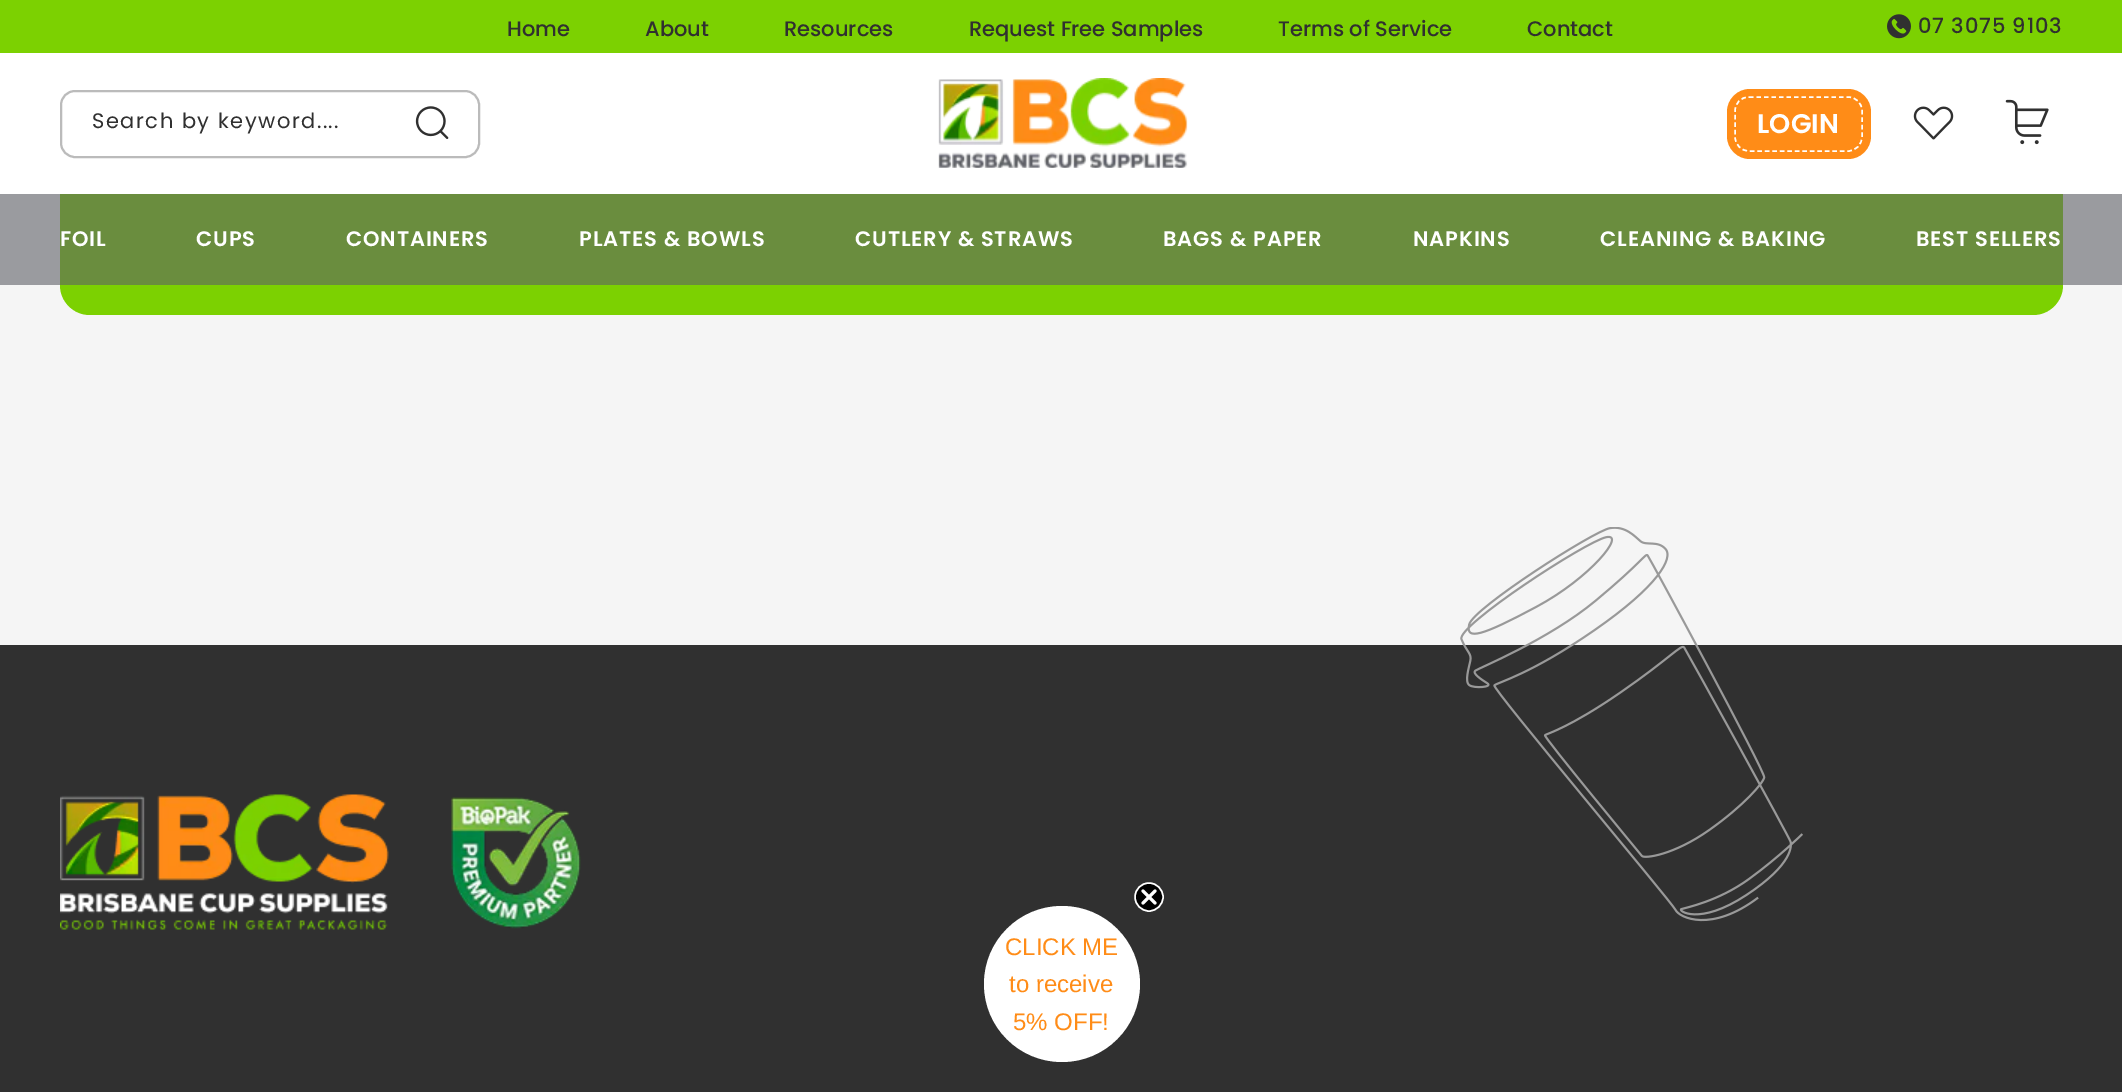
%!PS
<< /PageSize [2122 1092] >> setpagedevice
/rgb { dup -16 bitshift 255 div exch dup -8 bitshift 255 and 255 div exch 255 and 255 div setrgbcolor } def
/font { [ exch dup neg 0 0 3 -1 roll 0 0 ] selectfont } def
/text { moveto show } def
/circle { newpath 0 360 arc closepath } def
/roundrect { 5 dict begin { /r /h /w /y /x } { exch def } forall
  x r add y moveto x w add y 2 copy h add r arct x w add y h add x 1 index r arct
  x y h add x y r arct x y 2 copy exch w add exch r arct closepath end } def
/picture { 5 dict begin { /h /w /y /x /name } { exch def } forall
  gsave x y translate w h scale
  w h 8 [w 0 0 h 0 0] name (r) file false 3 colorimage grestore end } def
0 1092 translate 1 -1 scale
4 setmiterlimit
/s1 { /Poppins-Medium 21 font 16#303030 rgb } def
/s2 { /Poppins-SemiBold 27 font 16#FFFFFF rgb } def
/s3 { /LiberationSans-Regular 24 font 16#FF8C17 rgb } def
16#F5F5F5 rgb
0 0 2122 1092 rectfill
16#9A9B9F rgb
0 194 2122 91 rectfill
16#7CD101 rgb
60 -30 2003 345 30 roundrect fill
16#6A8D3E rgb
60 194 2003 91 rectfill
16#FFFFFF rgb
0 53 2122 141 rectfill
16#7CD101 rgb
0 0 2122 53 rectfill
s1
(Home) 507 36 text
(About) 645 36 text
(Resources) 784 36 text
(Request Free Samples) 969 36 text
(Terms of Service) 1278 36 text
(Contact) 1527 36 text
(pic1.raw) 1887 14 24 25 picture
1918 33 moveto 0.9 0 (07 3075 9103) ashow
16#BBBBBB rgb
2 setlinewidth
61 91 418 66 14 roundrect stroke
/Poppins-Regular 21 font
16#303030 rgb
92 128 moveto 1.5 0 (Search by keyword....) ashow
(pic2.raw) 415 106 34 33 picture
(pic3.raw) 938 78 250 90 picture
16#FF8C17 rgb
1727 89 144 70 23 roundrect fill
16#FFFFFF rgb
1.5 setlinewidth
[4.5 3] 0 setdash
1749 97 moveto 1848 97 lineto 1856 97 1862 103 1862 111 curveto 1862 136.5 lineto 1862 144.5 1856 151 1848 151 curveto 1749 151 lineto 1741 151 1735 144.5 1735 136.5 curveto 1735 111 lineto 1735 103 1741 97 1749 97 curveto closepath stroke
s2
(LOGIN) 1757 133 text
(pic4.raw) 1913 106 41 34 picture
(pic5.raw) 2005 99 44 46 picture
/Poppins-SemiBold 21 font
60 246 moveto 0.9 0 (FOIL) ashow
196 246 moveto 0.9 0 (CUPS) ashow
346 246 moveto 0.9 0 (CONTAINERS) ashow
579 246 moveto 0.9 0 (PLATES & BOWLS) ashow
855 246 moveto 0.9 0 (CUTLERY & STRAWS) ashow
1163 246 moveto 0.9 0 (BAGS & PAPER) ashow
1413 246 moveto 0.9 0 (NAPKINS) ashow
1600 246 moveto 0.9 0 (CLEANING & BAKING) ashow
1916 246 moveto 0.9 0 (BEST SELLERS) ashow
16#303030 rgb
0 645 2122 447 rectfill
(pic6.raw) 60 794 329 136 picture
(pic7.raw) 451 797 130 132 picture
(pic8.raw) 1460 527 343 395 picture
16#FFFFFF rgb
1062 984 78 circle fill
16#000000 rgb
1149 897 14 circle gsave fill grestore
16#FFFFFF rgb
[] 0 setdash
stroke
3 setlinewidth
1 setlinecap
1 setlinejoin
1143 891 moveto 1155 903 lineto 1143 903 moveto 1155 891 lineto closepath stroke
s3
(CLICK ME) 1005 955 text
(to receive) 1009 992 text
(5% OFF!) 1013 1030 text
showpage
